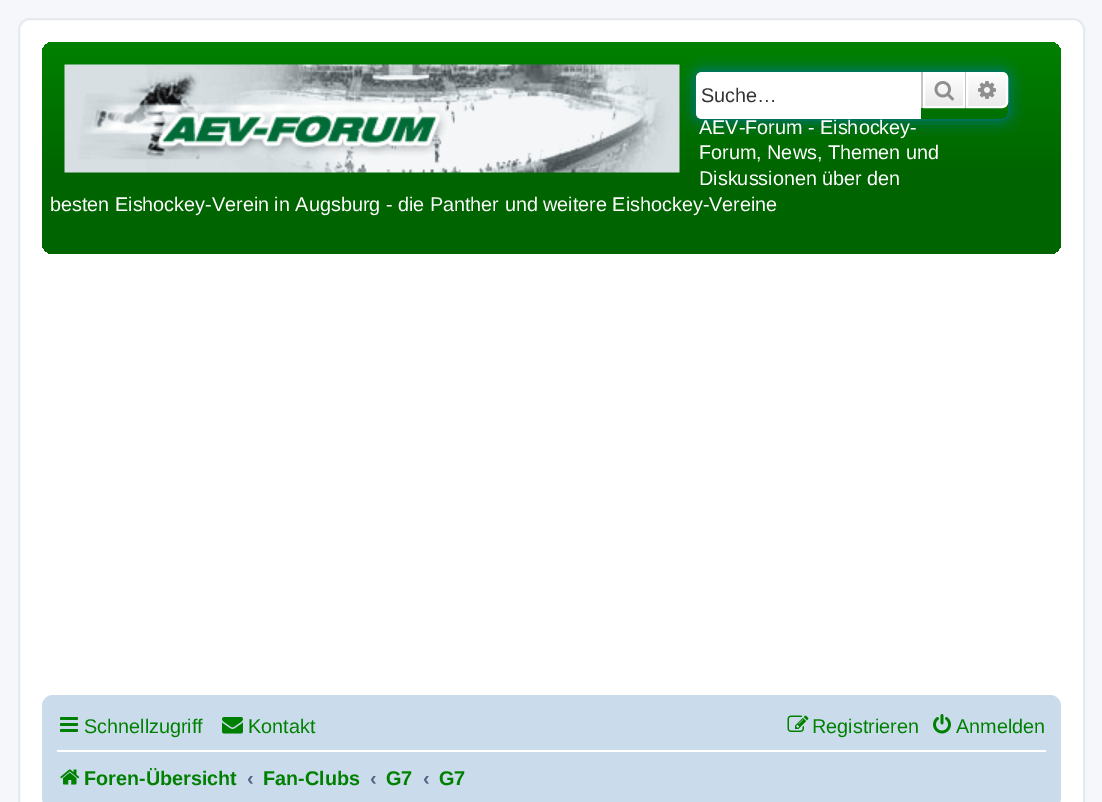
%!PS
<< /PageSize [1102 802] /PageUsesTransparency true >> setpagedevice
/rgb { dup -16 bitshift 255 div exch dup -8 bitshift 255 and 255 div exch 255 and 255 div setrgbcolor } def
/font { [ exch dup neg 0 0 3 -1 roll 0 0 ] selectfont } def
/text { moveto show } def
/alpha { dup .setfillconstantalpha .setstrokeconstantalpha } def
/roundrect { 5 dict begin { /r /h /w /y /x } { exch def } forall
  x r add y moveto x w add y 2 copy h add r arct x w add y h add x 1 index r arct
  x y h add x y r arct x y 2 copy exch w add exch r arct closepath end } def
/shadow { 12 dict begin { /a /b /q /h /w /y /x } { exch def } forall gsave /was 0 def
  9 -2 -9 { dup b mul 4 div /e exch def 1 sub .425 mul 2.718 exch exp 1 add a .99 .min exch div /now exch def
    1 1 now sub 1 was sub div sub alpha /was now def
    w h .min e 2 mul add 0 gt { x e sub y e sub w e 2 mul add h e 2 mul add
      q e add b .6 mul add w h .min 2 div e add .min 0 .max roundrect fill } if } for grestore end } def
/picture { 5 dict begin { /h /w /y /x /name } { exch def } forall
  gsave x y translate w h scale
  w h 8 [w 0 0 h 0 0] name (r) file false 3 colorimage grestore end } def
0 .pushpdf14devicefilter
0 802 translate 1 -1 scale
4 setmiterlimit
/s1 { /LiberationSans-Regular 19.8 font 16#333333 rgb } def
/s2 { /LiberationSans-Regular 19.8 font 16#FFFFFF rgb } def
/s3 { /LiberationSans-Regular 19.8 font 16#008000 rgb } def
/s4 { /LiberationSans-Bold 19.8 font 16#008000 rgb } def
/s5 { /LiberationSans-Bold 19.8 font 16#536482 rgb } def
16#F5F7FA rgb
0 0 1102 802 rectfill
16#FFFFFF rgb
19 19 1065 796 11 roundrect gsave fill grestore
16#E6E9ED rgb
2 setlinewidth
stroke
gsave 42 42 1019 212 11 roundrect clip newpath
<< /ShadingType 2 /ColorSpace /DeviceRGB /Coords [551 42 551 254] /Extend [true true] /Function << /FunctionType 3 /Domain [0 1] /Functions [<< /FunctionType 2 /Domain [0 1] /C0 [0 0.502 0] /C1 [0 0.502 0] /N 1 >> << /FunctionType 2 /Domain [0 1] /C0 [0 0.502 0] /C1 [0 0.392 0] /N 1 >> << /FunctionType 2 /Domain [0 1] /C0 [0 0.392 0] /C1 [0 0.392 0] /N 1 >>] /Bounds [0.01 0.65] /Encode [0 1 0 1 0 1] >> >> shfill grestore
(pic3.raw) 64 64 616 109 picture
gsave
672 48 moveto 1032 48 lineto 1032 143 lineto 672 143 lineto closepath 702 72 moveto 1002 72 lineto 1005.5 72 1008 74.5 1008 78 curveto 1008 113 lineto 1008 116.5 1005.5 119 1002 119 curveto 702 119 lineto 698.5 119 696 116.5 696 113 curveto 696 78 lineto 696 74.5 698.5 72 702 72 curveto closepath eoclip newpath
16#0075B0 rgb
696 72 312 47 6 7.5 1 shadow
grestore
16#FFFFFF rgb
702 72 moveto 921 72 lineto 921 119 lineto 702 119 lineto 698.5 119 696 116.5 696 113 curveto 696 78 lineto 696 74.5 698.5 72 702 72 curveto closepath fill
s1
(Suche…) 701 102 text
gsave 925 74 moveto 963 74 lineto 963 106 lineto 925 106 lineto closepath clip newpath
<< /ShadingType 2 /ColorSpace /DeviceRGB /Coords [944 72 944 108] /Extend [true true] /Function << /FunctionType 2 /Domain [0 1] /C0 [1 1 1] /C1 [0.914 0.914 0.914] /N 1 >> >> shfill grestore
16#FFFFFF rgb
924 73 40 34 rectstroke
16#C7C3BF rgb
965 72 1 36 rectfill
921 72 2 36 rectfill
(pic1.raw) 934 81 20 20 picture
gsave 967 73 moveto 1002 73 lineto 1005 73 1007 75 1007 78 curveto 1007 102 lineto 1007 105 1005 107 1002 107 curveto 967 107 lineto closepath clip newpath
<< /ShadingType 2 /ColorSpace /DeviceRGB /Coords [987 72 987 108] /Extend [true true] /Function << /FunctionType 2 /Domain [0 1] /C0 [1 1 1] /C1 [0.914 0.914 0.914] /N 1 >> >> shfill grestore
16#FFFFFF rgb
967 73 moveto 1002 73 lineto 1005 73 1007 75 1007 78 curveto 1007 102 lineto 1007 105 1005 107 1002 107 curveto 967 107 lineto closepath stroke
(pic2.raw) 978 81 18 18 picture
(AEV-Forum - Eishockey-) 699 134 text
(Forum, News, Themen und) 699 159 text
(Diskussionen über den) 699 185 text
(besten Eishockey-Verein in Augsburg - die Panther und weitere Eishockey-Vereine) 50 211 text
16#CADCEB rgb
42 695 1019 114 11 roundrect fill
(pic4.raw) 60 717 18 15 picture
s3
(Schnellzugriff) 84 733 text
(pic5.raw) 222 717 21 17 picture
(Kontakt) 248 733 text
(pic6.raw) 787 715 22 17 picture
(Registrieren) 812 733 text
(pic7.raw) 933 714 18 20 picture
(Anmelden) 956 733 text
16#FFFFFF rgb
57 750 989 2 rectfill
(pic8.raw) 60 769 20 16 picture
s4
(Foren-Übersicht) 84 785 text
s5
(‹) 247 785 text
s4
(Fan-Clubs) 263 785 text
s5
(‹) 370 785 text
s4
(G7) 386 785 text
s5
(‹) 423 785 text
s4
(G7) 439 785 text
.poppdf14devicefilter showpage
